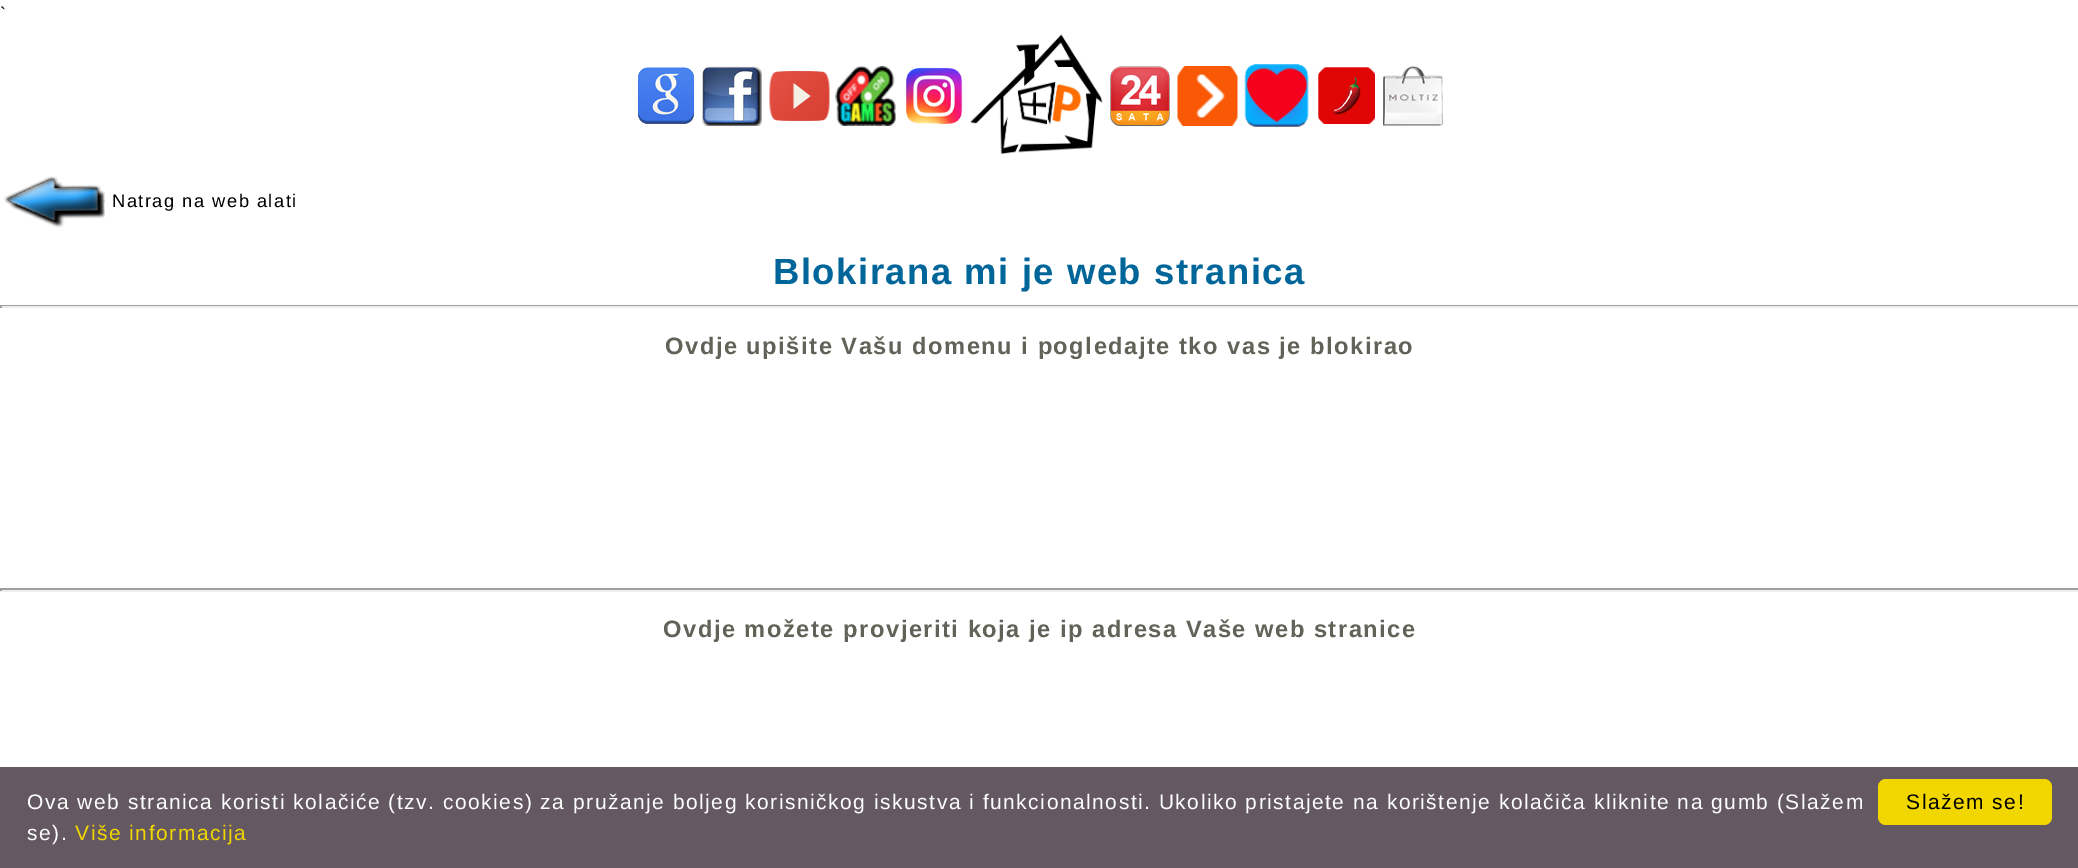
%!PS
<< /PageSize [2078 868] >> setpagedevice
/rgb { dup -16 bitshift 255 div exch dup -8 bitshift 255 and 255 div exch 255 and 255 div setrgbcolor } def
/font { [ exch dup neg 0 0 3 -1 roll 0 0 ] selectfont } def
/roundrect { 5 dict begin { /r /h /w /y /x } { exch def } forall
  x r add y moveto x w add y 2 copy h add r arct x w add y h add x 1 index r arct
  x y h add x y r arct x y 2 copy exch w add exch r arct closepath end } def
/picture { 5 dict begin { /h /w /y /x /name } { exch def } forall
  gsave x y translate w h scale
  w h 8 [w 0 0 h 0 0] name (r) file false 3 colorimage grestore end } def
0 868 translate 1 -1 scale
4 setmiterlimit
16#FFFFFF rgb
0 0 2078 868 rectfill
/LiberationSans-Regular 18.25 font
16#000000 rgb
0 20 moveto 1.5 0 (`) ashow
(pic1.raw) 638 67 56 57 picture
(pic2.raw) 702 66 60 60 picture
(pic3.raw) 769 71 61 50 picture
(pic4.raw) 835 66 61 60 picture
(pic5.raw) 906 67 57 57 picture
(pic6.raw) 970 34 133 121 picture
(pic7.raw) 1110 66 60 60 picture
(pic8.raw) 1177 66 61 60 picture
(pic9.raw) 1244 64 65 63 picture
(pic10.raw) 1318 67 57 57 picture
(pic11.raw) 1383 66 60 60 picture
(pic12.raw) 4 176 101 52 picture
112 207 moveto 1.5 0 (Natrag na web alati) ashow
/LiberationSans-Bold 36.5 font
16#006699 rgb
773 284 moveto 1.5 0 (Blokirana mi je web stranica) ashow
16#9F9F9F rgb
0 305 2078 1 rectfill
16#EEEEEE rgb
0 306 2078 2 rectfill
16#9F9F9F rgb
0 305 2 3 rectfill
/LiberationSans-Bold 23.7 font
16#626258 rgb
665 354 moveto 1.5 0 (Ovdje upišite Vašu domenu i pogledajte tko vas je blokirao) ashow
16#9F9F9F rgb
0 588 2078 2 rectfill
16#EEEEEE rgb
0 590 2078 2 rectfill
16#9F9F9F rgb
0 588 2 3 rectfill
16#626258 rgb
663 637 moveto 1.5 0 (Ovdje možete provjeriti koja je ip adresa Vaše web stranice) ashow
16#645862 rgb
0 767 2078 101 rectfill
/LiberationSans-Regular 21 font
16#FFFFFF rgb
27 809 moveto 1.5 0 (Ova web stranica koristi kolačiće \(tzv. cookies\) za pružanje boljeg korisničkog iskustva i funkcionalnosti. Ukoliko pristajete na korištenje kolačiča kliknite na gumb \(Slažem) ashow
27 840 moveto 1.5 0 (se\).) ashow
16#F1D600 rgb
75 840 moveto 1.5 0 (Više informacija) ashow
1878 779 174 46 8 roundrect fill
16#000000 rgb
1906 809 moveto 1.5 0 (Slažem se!) ashow
showpage
